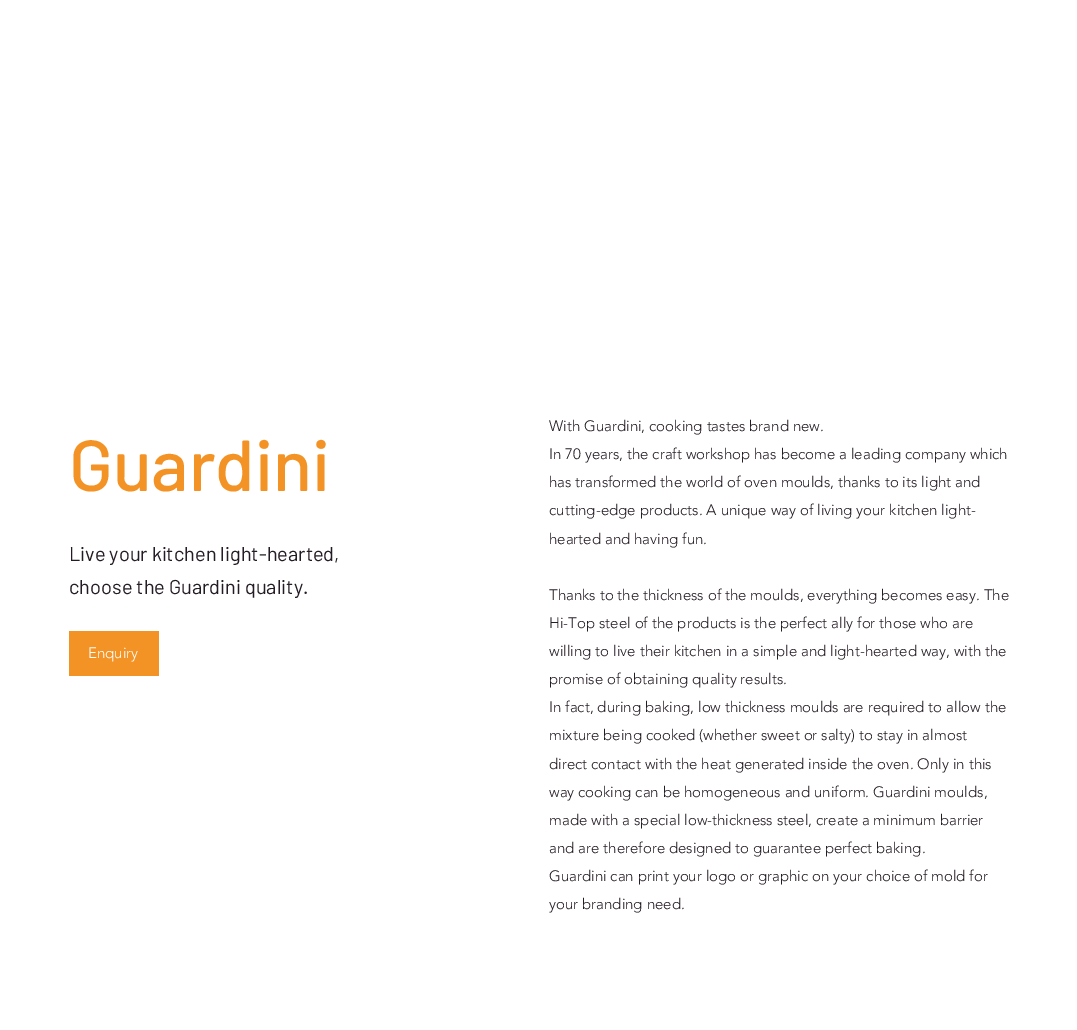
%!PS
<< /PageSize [1077 1030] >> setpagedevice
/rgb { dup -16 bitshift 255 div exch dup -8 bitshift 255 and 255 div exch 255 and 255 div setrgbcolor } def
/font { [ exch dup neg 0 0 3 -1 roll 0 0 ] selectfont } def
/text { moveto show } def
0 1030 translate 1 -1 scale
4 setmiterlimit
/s1 { /Barlow-Medium 72 font 16#F39325 rgb } def
/s2 { /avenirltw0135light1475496-Light 15 font 16#241C24 rgb } def
/s3 { /Barlow-Regular 20 font 16#241C24 rgb } def
/s4 { /avenirltw0135light1475496-Light 15 font 16#FFFFFF rgb } def
16#FFFFFF rgb
0 0 1077 1030 rectfill
s1
(Guardini) 69 491 text
s2
(With Guardini, cooking tastes brand new.) 549 431 text
(In 70 years, the craft workshop has become a leading company which) 549 459 text
(has transformed the world of oven moulds, thanks to its light and) 549 487 text
(cutting-edge products. A unique way of living your kitchen light-) 549 515 text
(hearted and having fun.) 549 544 text
(Thanks to the thickness of the moulds, everything becomes easy. The) 549 600 text
(Hi-Top steel of the products is the perfect ally for those who are) 549 628 text
(willing to live their kitchen in a simple and light-hearted way, with the) 549 656 text
(promise of obtaining quality results.) 549 684 text
(In fact, during baking, low thickness moulds are required to allow the) 549 712 text
(mixture being cooked \(whether sweet or salty\) to stay in almost) 549 740 text
(direct contact with the heat generated inside the oven. Only in this) 549 769 text
(way cooking can be homogeneous and uniform. Guardini moulds,) 549 797 text
(made with a special low-thickness steel, create a minimum barrier) 549 825 text
(and are therefore designed to guarantee perfect baking.) 549 853 text
(Guardini can print your logo or graphic on your choice of mold for) 549 881 text
(your branding need.) 549 909 text
s3
(Live your kitchen light-hearted,) 69 561 text
(choose the Guardini quality.) 69 594 text
16#F39325 rgb
69 631 90 45 rectfill
s4
(Enquiry) 88 658 text
showpage
